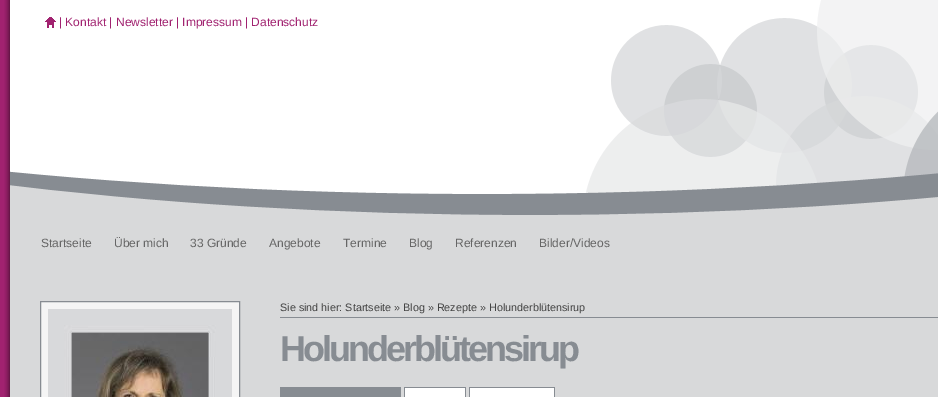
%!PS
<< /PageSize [938 397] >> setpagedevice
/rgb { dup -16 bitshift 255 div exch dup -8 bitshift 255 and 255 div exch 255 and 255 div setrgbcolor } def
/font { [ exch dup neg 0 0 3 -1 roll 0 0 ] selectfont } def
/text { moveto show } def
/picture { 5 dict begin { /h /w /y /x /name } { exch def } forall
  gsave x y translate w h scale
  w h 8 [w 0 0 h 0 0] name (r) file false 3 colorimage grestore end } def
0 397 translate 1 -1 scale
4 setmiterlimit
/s1 { /LiberationSans-Regular 12 font 16#A12270 rgb } def
/s2 { /LiberationSans-Regular 12 font 16#666666 rgb } def
/s3 { /LiberationSans-Regular 10.8 font 16#444444 rgb } def
16#A12270 rgb
0 0 938 397 rectfill
(pic1.raw) 4 0 6 397 picture
16#FFFFFF rgb
10 0 928 194 rectfill
(pic2.raw) 45 17 11 11 picture
s1
(| Kontakt | Newsletter | Impressum | Datenschutz) 59 26 text
(pic3.raw) 583 0 355 193 picture
(pic4.raw) 10 171 928 44 picture
16#D8D9DA rgb
10 215 928 182 rectfill
s2
(Startseite) 41 247 text
(Über mich) 114 247 text
(33 Gründe) 190 247 text
(Angebote) 269 247 text
(Termine) 343 247 text
(Blog) 409 247 text
(Referenzen) 455 247 text
(Bilder/Videos) 539 247 text
16#F5F5F5 rgb
40.5 301.5 moveto 239.5 301.5 lineto 239.5 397.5 lineto 40.5 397.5 lineto closepath gsave fill grestore
16#878C92 rgb
stroke
(pic5.raw) 48 309 184 88 picture
280 317 658 1 rectfill
s3
(Sie sind hier: Startseite » Blog » Rezepte » Holunderblütensirup) 280 311 text
/LiberationSans-Bold 36 font
16#878C92 rgb
280 361 moveto -3 0 (Holunderblütensirup) ashow
280 387 121 10 rectfill
16#FFFFFF rgb
405 388 60 9 rectfill
16#878C92 rgb
404 387 62 1 rectfill
465 387 1 10 rectfill
404 387 1 10 rectfill
16#FFFFFF rgb
470 388 84 9 rectfill
16#878C92 rgb
469 387 86 1 rectfill
554 387 1 10 rectfill
469 387 1 10 rectfill
showpage
